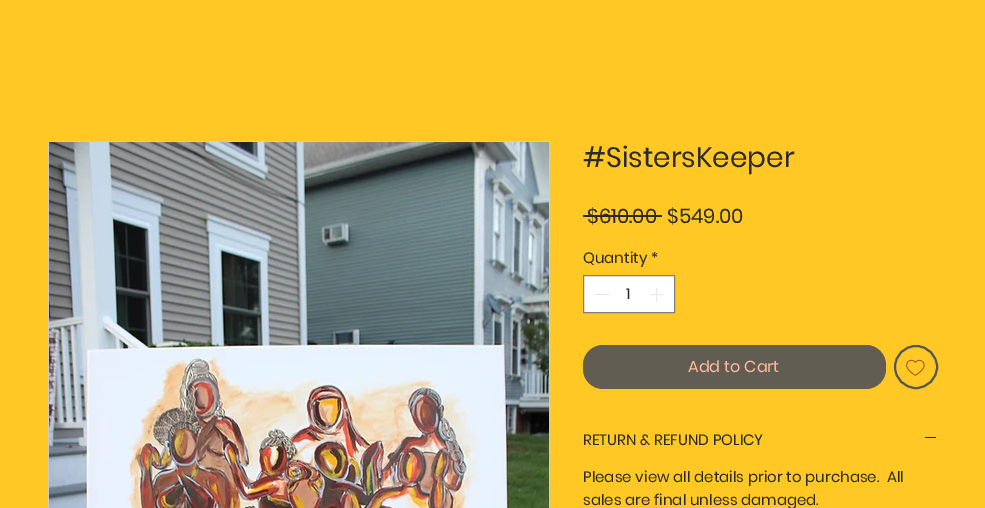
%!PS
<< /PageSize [985 508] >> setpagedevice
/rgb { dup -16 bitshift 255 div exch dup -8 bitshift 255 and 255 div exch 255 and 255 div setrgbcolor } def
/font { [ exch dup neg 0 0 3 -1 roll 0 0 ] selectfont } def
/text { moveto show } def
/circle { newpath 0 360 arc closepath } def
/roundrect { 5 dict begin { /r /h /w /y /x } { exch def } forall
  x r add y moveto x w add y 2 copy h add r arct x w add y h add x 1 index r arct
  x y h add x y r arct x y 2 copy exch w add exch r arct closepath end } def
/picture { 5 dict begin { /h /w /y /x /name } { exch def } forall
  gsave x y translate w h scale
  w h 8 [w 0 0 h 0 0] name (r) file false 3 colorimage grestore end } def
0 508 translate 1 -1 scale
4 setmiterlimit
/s1 { /Poppins-Regular 28 font 16#2A2A2A rgb } def
/s2 { /Poppins-Regular 20 font 16#2A2A2A rgb } def
/s3 { /Poppins-Regular 15 font 16#2A2A2A rgb } def
/s4 { /Poppins-Regular 16 font 16#FEBA9E rgb } def
16#FFC824 rgb
0 0 985 508 rectfill
16#CCCCCC rgb
48.5 141.5 501 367 rectstroke
(pic1.raw) 49 142 500 366 picture
s1
(#SistersKeeper) 583 167 text
s2
($610.00) 587 223 text
583 215 79 2 rectfill
($549.00) 667 223 text
s3
(Quantity) 583 263 text
(*) 651 263 text
16#FFFFFF rgb
583.5 275.5 moveto 674.5 275.5 lineto 674.5 312.5 lineto 583.5 312.5 lineto closepath gsave fill grestore
16#7F7F7F rgb
stroke
16#E3E3E3 rgb
595 294 14 1 rectfill
s3
(1) 626 299 text
(pic2.raw) 649 287 15 15 picture
16#615D52 rgb
583 345 303 44 20 roundrect fill
s4
(Add to Cart) 688 372 text
16#555555 rgb
2 setlinewidth
916 367 21 circle stroke
(pic3.raw) 906 359 19 17 picture
s3
(RETURN & REFUND POLICY) 583 445 text
925 437 11 1 rectfill
(Please view all details prior to purchase.  All) 583 482 text
(sales are final unless damaged.) 583 505 text
showpage
